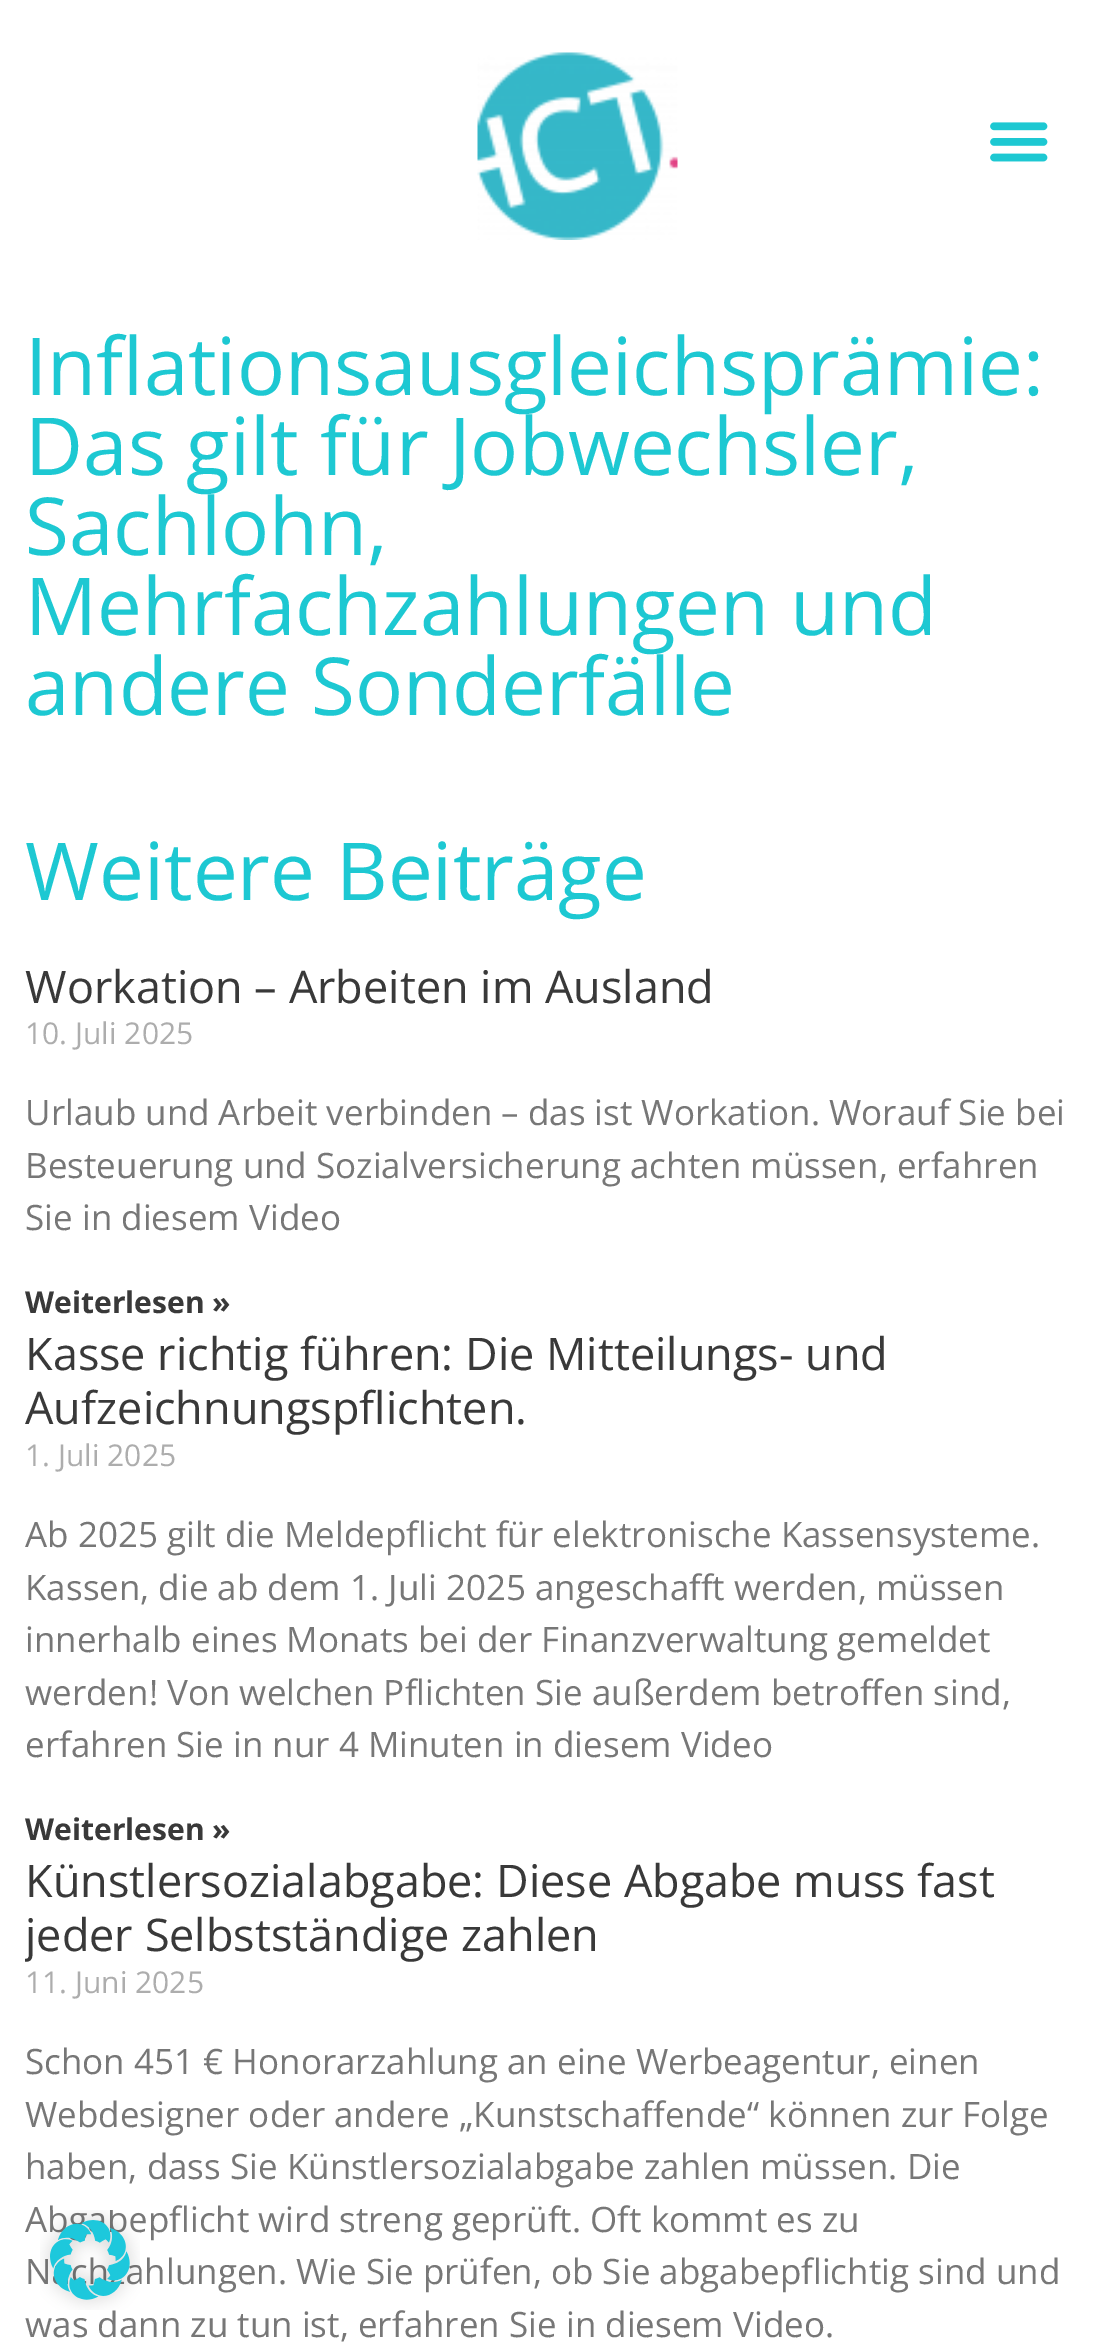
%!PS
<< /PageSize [1113 2350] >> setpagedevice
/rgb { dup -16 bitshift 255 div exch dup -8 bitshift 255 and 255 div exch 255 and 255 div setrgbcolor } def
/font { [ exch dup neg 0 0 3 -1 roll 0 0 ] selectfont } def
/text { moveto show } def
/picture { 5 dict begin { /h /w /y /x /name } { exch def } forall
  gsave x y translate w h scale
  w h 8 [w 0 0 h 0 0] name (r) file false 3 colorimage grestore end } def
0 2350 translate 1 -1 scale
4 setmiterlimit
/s1 { /OpenSans-Regular 80 font 16#1DC8D2 rgb } def
/s2 { /OpenSans-Regular 45 font 16#393939 rgb } def
/s3 { /OpenSans-Regular 30 font 16#ADADAD rgb } def
/s4 { /OpenSans-Regular 35 font 16#777777 rgb } def
/s5 { /OpenSans-Bold 30 font 16#393939 rgb } def
16#FFFFFF rgb
0 0 1113 2350 rectfill
(pic1.raw) 477 52 201 188 picture
(pic2.raw) 990 122 58 40 picture
s1
(Inflationsausgleichsprämie:) 25 395 text
(Das gilt für Jobwechsler,) 25 475 text
(Sachlohn,) 25 555 text
(Mehrfachzahlungen und) 25 635 text
(andere Sonderfälle) 25 715 text
(Weitere Beiträge) 25 900 text
s2
(Workation – Arbeiten im Ausland) 25 1003 text
s3
(10. Juli 2025) 25 1044 text
s4
(Urlaub und Arbeit verbinden – das ist Workation. Worauf Sie bei) 25 1125 text
(Besteuerung und Sozialversicherung achten müssen, erfahren) 25 1178 text
(Sie in diesem Video) 25 1230 text
s5
(Weiterlesen ») 25 1313 text
s2
(Kasse richtig führen: Die Mitteilungs- und) 25 1370 text
(Aufzeichnungspflichten.) 25 1424 text
s3
(1. Juli 2025) 25 1466 text
s4
(Ab 2025 gilt die Meldepflicht für elektronische Kassensysteme.) 25 1547 text
(Kassen, die ab dem 1. Juli 2025 angeschafft werden, müssen) 25 1600 text
(innerhalb eines Monats bei der Finanzverwaltung gemeldet) 25 1652 text
(werden! Von welchen Pflichten Sie außerdem betroffen sind,) 25 1705 text
(erfahren Sie in nur 4 Minuten in diesem Video) 25 1757 text
s5
(Weiterlesen ») 25 1840 text
s2
(Künstlersozialabgabe: Diese Abgabe muss fast) 25 1897 text
gsave
25 1855 1065 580 rectclip
(jeder Selbstständige zahlen) 25 1951 text
grestore
s3
(11. Juni 2025) 25 1993 text
s4
(Schon 451 € Honorarzahlung an eine Werbeagentur, einen) 25 2074 text
(Webdesigner oder andere „Kunstschaffende“ können zur Folge) 25 2127 text
(haben, dass Sie Künstlersozialabgabe zahlen müssen. Die) 25 2179 text
(Ab) 25 2232 text
(epflicht wird streng geprüft. Oft kommt es zu) 128 2232 text
(N) 25 2284 text
(ahlungen. Wie Sie prüfen, ob Sie abgabepflichtig sind und) 125 2284 text
(was dann zu tun ist, erfahren Sie in diesem Video.) 25 2337 text
(pic3.raw) 40 2210 100 100 picture
showpage
